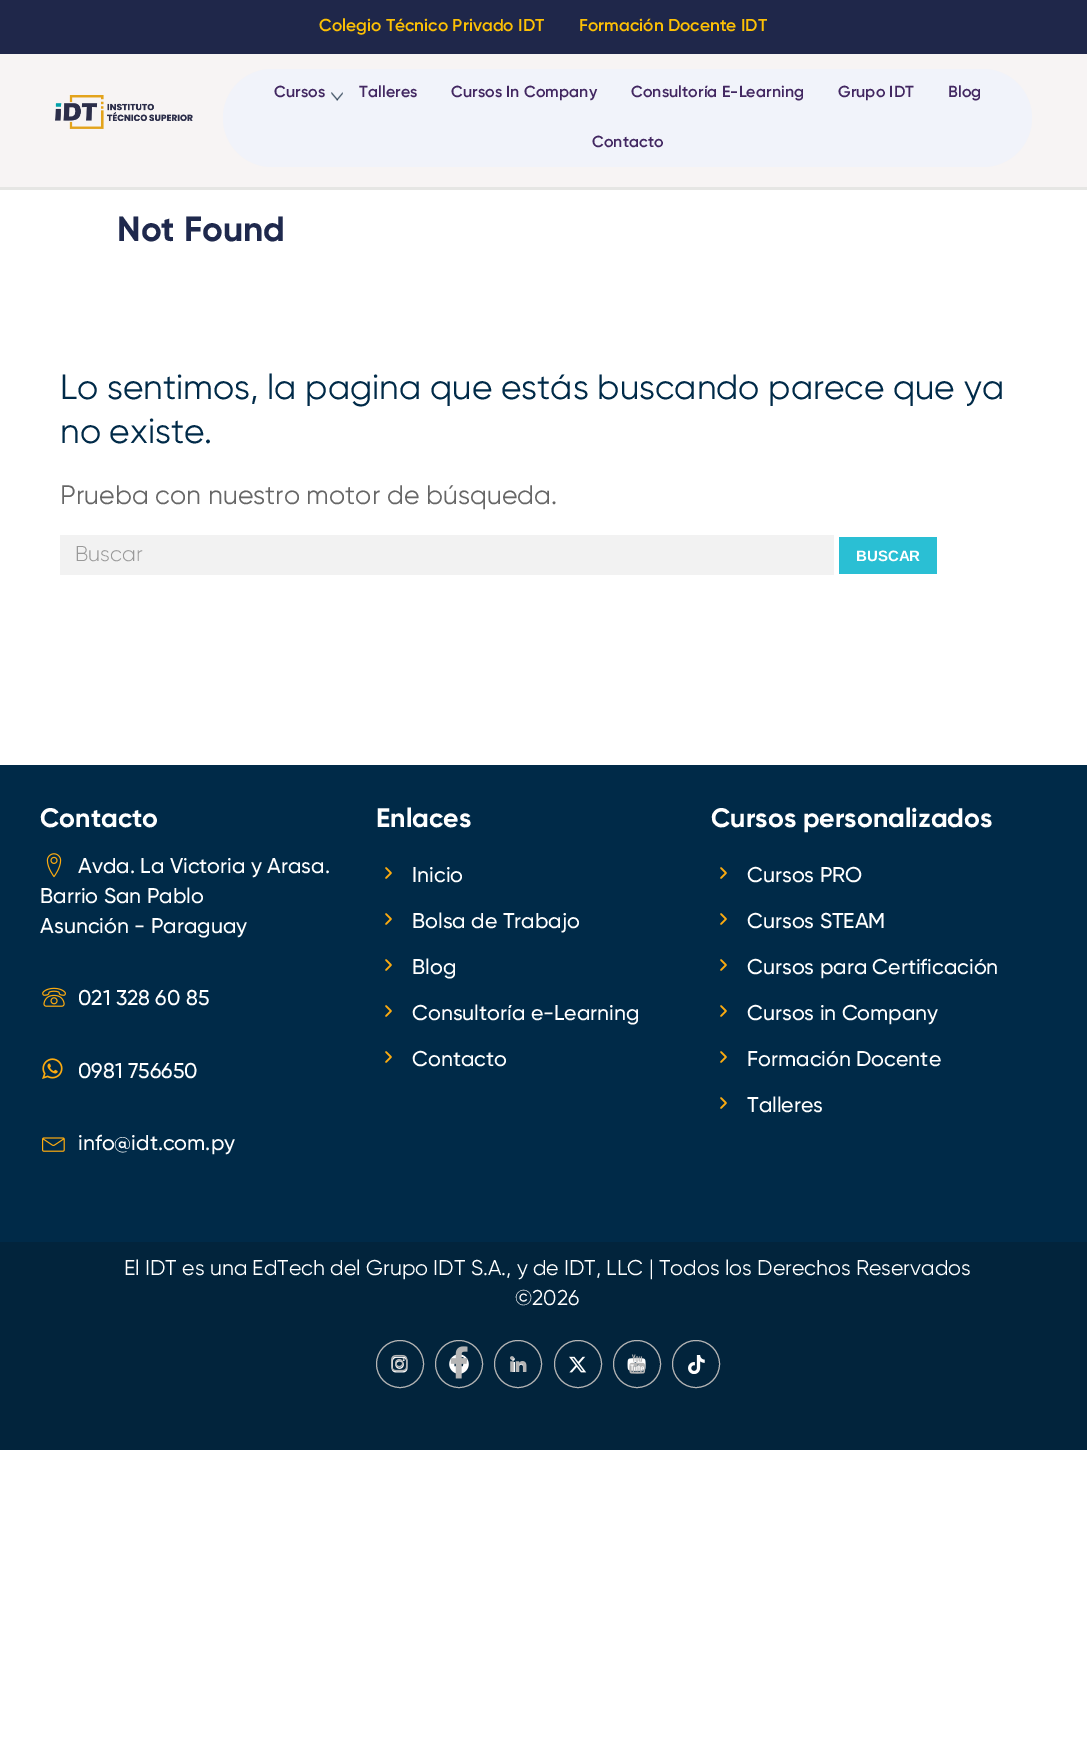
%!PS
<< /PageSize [1087 1745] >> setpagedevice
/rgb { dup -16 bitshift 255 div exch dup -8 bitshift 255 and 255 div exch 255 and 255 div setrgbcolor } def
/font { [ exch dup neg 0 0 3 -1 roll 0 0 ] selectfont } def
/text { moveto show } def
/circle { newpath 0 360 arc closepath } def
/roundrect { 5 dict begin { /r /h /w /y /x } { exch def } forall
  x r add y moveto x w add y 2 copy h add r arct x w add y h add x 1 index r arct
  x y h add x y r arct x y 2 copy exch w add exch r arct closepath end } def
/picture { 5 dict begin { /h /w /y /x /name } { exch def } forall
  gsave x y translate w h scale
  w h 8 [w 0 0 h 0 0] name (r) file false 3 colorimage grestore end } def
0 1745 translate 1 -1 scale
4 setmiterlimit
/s1 { /Gilroy-SemiBold 17.3 font 16#FCC005 rgb } def
/s2 { /Gilroy-Bold 35 font 16#1F294D rgb } def
/s3 { /Gilroy-Regular 35 font 16#002A48 rgb } def
/s4 { /Gilroy-Regular 26.7 font 16#666666 rgb } def
/s5 { /Gilroy-Light 21.35 font 16#999999 rgb } def
/s6 { /LiberationSans-Bold 15 font 16#FFFFFF rgb } def
/s7 { /Gilroy-Bold 26.7 font 16#FFFFFF rgb } def
/s8 { /Gilroy-Medium 21.35 font 16#FFFFFF rgb } def
/s9 { /Gilroy-Regular 21.35 font 16#FFFFFF rgb } def
16#FFFFFF rgb
0 0 1087 1745 rectfill
16#1F274A rgb
0 0 1087 54 rectfill
s1
(Colegio Técnico Privado IDT) 319 31 text
(Formación Docente IDT) 579 31 text
16#F7F4F4 rgb
0 54 1087 133 rectfill
16#E6E6E4 rgb
0 187 1087 3 rectfill
(pic1.raw) 55 95 138 34 picture
16#F1F3FA rgb
223 69 809 98 49 roundrect fill
/Gilroy-SemiBold 16 font
16#422761 rgb
274 97 moveto 0.1 0 (Cursos) ashow
(pic2.raw) 331 92 12 9 picture
359 97 moveto 0.1 0 (Talleres) ashow
451 97 moveto 0.1 0 (Cursos In Company) ashow
631 97 moveto 0.1 0 (Consultoría E-Learning) ashow
838 97 moveto 0.1 0 (Grupo IDT) ashow
948 97 moveto 0.1 0 (Blog) ashow
592 147 moveto 0.1 0 (Contacto) ashow
s2
(Not Found) 117 241 text
s3
(Lo sentimos, la pagina que estás buscando parece que ya) 60 399 text
(no existe.) 60 443 text
s4
(Prueba con nuestro motor de búsqueda.) 60 504 text
16#F2F2F2 rgb
60 535 774 40 rectfill
s5
(Buscar) 75 561 text
16#2ABFD4 rgb
839 537 98 37 rectfill
s6
(BUSCAR) 856 561 text
16#002A48 rgb
0 765 1087 477 rectfill
s7
(Contacto) 40 827 text
(pic3.raw) 46 853 16 25 picture
s8
(Avda. La Victoria y Arasa.) 78 873 text
(Barrio San Pablo) 40 903 text
(Asunción - Paraguay) 40 933 text
(pic4.raw) 42 987 24 20 picture
(021 328 60 85) 78 1005 text
(pic5.raw) 42 1058 21 21 picture
(0981 756650) 78 1078 text
(pic6.raw) 42 1137 23 15 picture
(info@idt.com.py) 78 1150 text
s7
(Enlaces) 376 827 text
16#FCAB10 rgb
1.5 setlinewidth
1 setlinecap
1 setlinejoin
386 868 moveto 391 873 lineto 386 878 lineto stroke
s8
(Inicio) 412 882 text
16#FCAB10 rgb
386 914 moveto 391 919 lineto 386 924 lineto stroke
s8
(Bolsa de Trabajo) 412 928 text
16#FCAB10 rgb
386 960 moveto 391 965 lineto 386 970 lineto stroke
s8
(Blog) 412 974 text
16#FCAB10 rgb
386 1006 moveto 391 1011 lineto 386 1016 lineto stroke
s8
(Consultoría e-Learning) 412 1020 text
16#FCAB10 rgb
386 1052 moveto 391 1057 lineto 386 1062 lineto stroke
s8
(Contacto) 412 1066 text
s7
(Cursos personalizados) 711 827 text
16#FCAB10 rgb
721 868 moveto 726 873 lineto 721 878 lineto stroke
s8
(Cursos PRO) 747 882 text
16#FCAB10 rgb
721 914 moveto 726 919 lineto 721 924 lineto stroke
s8
(Cursos STEAM) 747 928 text
16#FCAB10 rgb
721 960 moveto 726 965 lineto 721 970 lineto stroke
s8
(Cursos para Certificación) 747 974 text
16#FCAB10 rgb
721 1006 moveto 726 1011 lineto 721 1016 lineto stroke
s8
(Cursos in Company) 747 1020 text
16#FCAB10 rgb
721 1052 moveto 726 1057 lineto 721 1062 lineto stroke
s8
(Formación Docente) 747 1066 text
16#FCAB10 rgb
721 1098 moveto 726 1103 lineto 721 1108 lineto stroke
s8
(Talleres) 747 1112 text
16#02243C rgb
0 1242 1087 208 rectfill
s9
(El IDT es una EdTech del Grupo IDT S.A., y de IDT, LLC | Todos los Derechos Reservados) 124 1275 text
(©2026) 515 1305 text
16#B5B5B5 rgb
1 setlinewidth
0 setlinecap
0 setlinejoin
400 1364 23.5 circle stroke
(pic7.raw) 391 1356 17 17 picture
(pic8.raw) 391 1354 17 18 picture
459 1364 23.5 circle stroke
(pic9.raw) 449 1354 20 20 picture
(pic10.raw) 450 1346 18 33 picture
518 1364 23.5 circle stroke
(pic11.raw) 511 1357 15 15 picture
(pic12.raw) 510 1356 17 16 picture
578 1364 23.5 circle stroke
(pic13.raw) 569 1356 18 17 picture
637 1364 23.5 circle stroke
(pic14.raw) 627 1358 19 13 picture
(pic15.raw) 629 1354 17 20 picture
696 1364 23.5 circle stroke
(pic16.raw) 688 1355 17 19 picture
showpage
